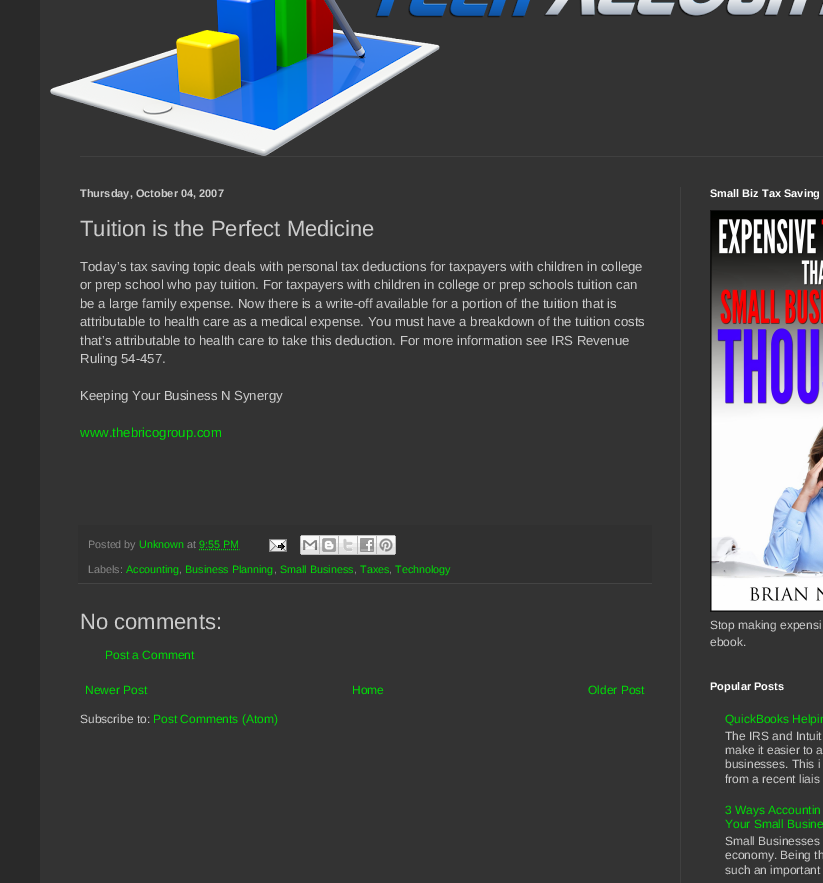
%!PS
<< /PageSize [823 883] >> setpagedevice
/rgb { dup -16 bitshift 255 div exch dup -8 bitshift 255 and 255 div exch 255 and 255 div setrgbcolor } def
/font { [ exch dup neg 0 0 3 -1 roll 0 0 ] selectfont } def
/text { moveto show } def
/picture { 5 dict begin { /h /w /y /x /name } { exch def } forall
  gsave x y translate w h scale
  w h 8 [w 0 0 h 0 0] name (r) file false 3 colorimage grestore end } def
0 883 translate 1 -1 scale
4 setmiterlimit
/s1 { /LiberationSans-Bold 11 font 16#CCCCCC rgb } def
/s2 { /LiberationSans-Regular 22 font 16#CCCCCC rgb } def
/s3 { /LiberationSans-Regular 13.2 font 16#CCCCCC rgb } def
/s4 { /LiberationSans-Regular 13.2 font 16#00DD07 rgb } def
/s5 { /LiberationSans-Regular 10.75 font 16#888888 rgb } def
/s6 { /LiberationSans-Regular 10.75 font 16#00DD07 rgb } def
/s7 { /LiberationSans-Regular 12 font 16#00DD07 rgb } def
/s8 { /LiberationSans-Regular 12 font 16#CCCCCC rgb } def
/s9 { /LiberationSans-Bold 11 font 16#FFFFFF rgb } def
16#292929 rgb
0 0 823 883 rectfill
16#333333 rgb
40 0 783 883 rectfill
(pic1.raw) 50 0 773 156 picture
16#404040 rgb
80 156 743 1 rectfill
680 187 1 696 rectfill
s1
(Thursday, October 04, 2007) 80 197 text
s2
(Tuition is the Perfect Medicine) 80 236 text
s3
(Today’s tax saving topic deals with personal tax deductions for taxpayers with children in college) 80 271 text
(or prep school who pay tuition. For taxpayers with children in college or prep schools tuition can) 80 289 text
(be a large family expense. Now there is a write-off available for a portion of the tuition that is) 80 308 text
(attributable to health care as a medical expense. You must have a breakdown of the tuition costs) 80 326 text
(that’s attributable to health care to take this deduction. For more information see IRS Revenue) 80 345 text
(Ruling 54-457.) 80 363 text
(Keeping Your Business N Synergy) 80 400 text
s4
(www.thebricogroup.com) 80 437 text
16#303030 rgb
78 525 574 58 rectfill
16#444444 rgb
78 583 574 1 rectfill
s5
(Posted by) 88 548 text
s6
(Unknown) 139 548 text
s5
(at) 187 548 text
s6
(9:55 PM) 199 548 text
[1 1] 0 setdash
199 549.5 moveto 239.5 549.5 lineto stroke
(pic2.raw) 269 539 18 13 picture
(pic3.raw) 300 535 20 20 picture
(pic4.raw) 320 535 19 20 picture
(pic5.raw) 339 535 19 20 picture
(pic6.raw) 358 535 19 20 picture
(pic7.raw) 377 535 19 20 picture
s5
(Labels:) 88 573 text
s6
(Accounting) 126 573 text
s5
(,) 179 573 text
s6
(Business Planning) 185 573 text
s5
(,) 274 573 text
s6
(Small Business) 280 573 text
s5
(,) 354 573 text
s6
(Taxes) 360 573 text
s5
(,) 389 573 text
s6
(Technology) 395 573 text
s2
(No comments:) 80 629 text
s7
(Post a Comment) 105 659 text
(Newer Post) 85 694 text
(Home) 352 694 text
(Older Post) 588 694 text
s8
(Subscribe to:) 80 723 text
s7
(Post Comments \(Atom\)) 153 723 text
s9
(Small Biz Tax Saving) 710 197 text
16#111111 rgb
710 210 113 402 rectfill
(pic8.raw) 711 211 112 400 picture
s8
(Stop making expensi) 710 629 text
(ebook.) 710 646 text
s9
(Popular Posts) 710 690 text
s7
(QuickBooks Helpin) 725 723 text
s8
(The IRS and Intuit) 725 740 text
(make it easier to a) 725 754 text
(businesses. This i) 725 768 text
(from a recent liais) 725 783 text
s7
(3 Ways Accountin) 725 814 text
(Your Small Busine) 725 828 text
s8
(Small Businesses) 725 845 text
(economy. Being th) 725 859 text
(such an important) 725 874 text
showpage
